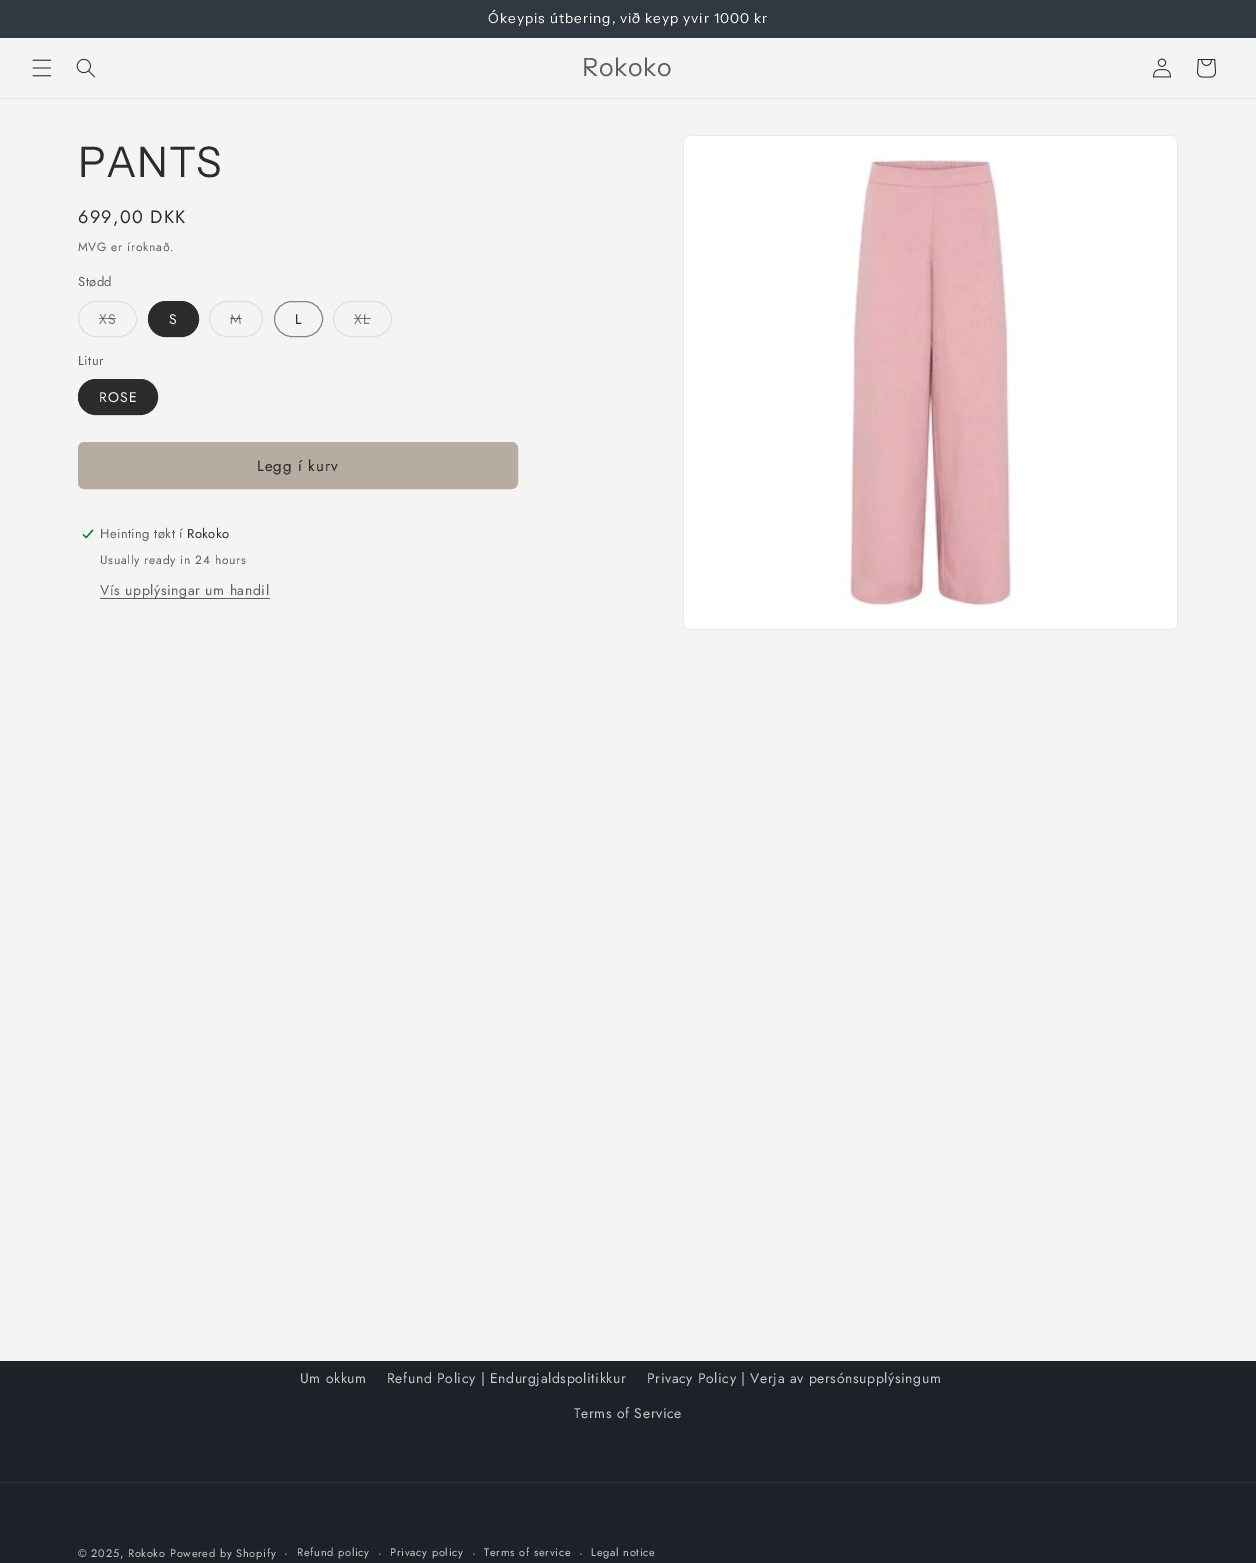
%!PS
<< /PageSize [1256 1563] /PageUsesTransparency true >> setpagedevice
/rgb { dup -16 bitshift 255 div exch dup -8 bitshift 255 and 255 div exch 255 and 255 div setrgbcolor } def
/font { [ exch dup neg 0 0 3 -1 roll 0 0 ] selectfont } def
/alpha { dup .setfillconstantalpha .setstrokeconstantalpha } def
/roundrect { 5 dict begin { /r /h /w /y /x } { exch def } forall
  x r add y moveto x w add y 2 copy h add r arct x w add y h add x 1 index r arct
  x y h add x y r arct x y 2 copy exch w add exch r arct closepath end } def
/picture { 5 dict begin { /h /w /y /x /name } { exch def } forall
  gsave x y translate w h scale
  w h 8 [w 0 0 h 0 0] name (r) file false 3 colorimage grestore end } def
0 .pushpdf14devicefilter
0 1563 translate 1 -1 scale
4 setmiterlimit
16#F4F4F4 rgb
0 0 1256 1563 rectfill
16#323841 rgb
0 0 1256 38 rectfill
/InstrumentSans-Regular 13.65 font
16#FFFFFF rgb
488 23 moveto 1 0 (Ókeypis útbering, við keyp yvir 1000 kr) ashow
16#E4E4E4 rgb
0 98 1256 1 rectfill
(pic1.raw) 32 59 20 18 picture
(pic2.raw) 76 58 19 20 picture
/InstrumentSans-Regular 25 font
16#5D5E5F rgb
582 76 moveto 0.5 0 (Rokoko) ashow
(pic3.raw) 1153 58 18 20 picture
(pic4.raw) 1197 59 20 19 picture
/InstrumentSans-Regular 42 font
16#2B2C2D rgb
78 177 moveto 0.5 0 (PANTS) ashow
/Jost-Regular 18 font
78 223 moveto 1.25 0 (699,00 DKK) ashow
/Jost-Regular 12 font
16#5D5E5F rgb
78 251 moveto 0.7 0 (MVG er íroknað.) ashow
/Jost-Regular 13 font
78 286 moveto 0.4 0 (Stødd) ashow
16#E0E0E0 rgb
78.5 301.5 58 35 17.5 roundrect stroke
/Jost-Regular 14 font
16#7B7C7D rgb
99 324 moveto 1 0 (XS) ashow
0.6 alpha
16#2B2C2D rgb
99 318 17 1 rectfill
1 alpha
148 301 51 36 18 roundrect fill
0.55 alpha
148.5 301.5 50 35 17.5 roundrect stroke
1 alpha
16#F4F4F4 rgb
169 324 moveto 1 0 (S) ashow
16#E0E0E0 rgb
209.5 301.5 53 35 17.5 roundrect stroke
16#7B7C7D rgb
230 324 moveto 1 0 (M) ashow
0.6 alpha
16#2B2C2D rgb
230 318 12 1 rectfill
1 alpha
16#858687 rgb
274.5 301.5 48 35 17.5 roundrect stroke
16#2B2C2D rgb
295 324 moveto 1 0 (L) ashow
16#E0E0E0 rgb
333.5 301.5 58 35 17.5 roundrect stroke
16#7B7C7D rgb
354 324 moveto 1 0 (XL) ashow
0.6 alpha
16#2B2C2D rgb
354 318 17 1 rectfill
/Jost-Regular 13 font
1 alpha
16#5D5E5F rgb
78 365 moveto 0.4 0 (Litur) ashow
16#2B2C2D rgb
78 379 80 36 18 roundrect fill
0.55 alpha
78.5 379.5 79 35 17.5 roundrect stroke
/Jost-Regular 14 font
1 alpha
16#F4F4F4 rgb
99 402 moveto 1 0 (ROSE) ashow
16#B7ACA2 rgb
78 442 440 47 7 roundrect fill
78.5 442.5 439 46 6.5 roundrect stroke
/Jost-Regular 15 font
16#262626 rgb
257 471 moveto 1 0 (Legg í kurv) ashow
(pic5.raw) 82 529 12 10 picture
/Jost-Regular 13 font
16#5D5E5F rgb
100 538 moveto 0.4 0 (Heinting tøkt í) ashow
16#2B2C2D rgb
187 538 moveto 0.4 0 (Rokoko) ashow
/Jost-Regular 12 font
16#5D5E5F rgb
100 564 moveto 0.7 0 (Usually ready in 24 hours) ashow
100 598 170 1 rectfill
/Jost-Regular 14 font
100 595 moveto 0.6 0 (Vís upplýsingar um handil) ashow
16#EAEAEA rgb
683.5 135.5 494 494 7.5 roundrect stroke
(pic6.raw) 684 136 493 493 picture
16#1C2228 rgb
0 1361 1256 202 rectfill
16#C6C8C9 rgb
300 1383 moveto 0.6 0 (Um okkum) ashow
387 1383 moveto 0.6 0 (Refund Policy | Endurgjaldspolitikkur) ashow
647 1383 moveto 0.6 0 (Privacy Policy | Verja av persónsupplýsingum) ashow
574 1418 moveto 0.6 0 (Terms of Service) ashow
16#2E3439 rgb
0 1482 1256 1 rectfill
/Jost-Regular 11 font
16#C6C8C9 rgb
78 1557 moveto 0.7 0 (© 2025, Rokoko) ashow
170 1557 moveto 0.7 0 (Powered by Shopify) ashow
/Jost-Regular 12 font
284 1557 moveto 0.7 0 (·) ashow
/Jost-Regular 11 font
297 1556 moveto 0.7 0 (Refund policy) ashow
/Jost-Regular 12 font
378 1557 moveto 0.7 0 (·) ashow
/Jost-Regular 11 font
390 1556 moveto 0.7 0 (Privacy policy) ashow
/Jost-Regular 12 font
472 1557 moveto 0.7 0 (·) ashow
/Jost-Regular 11 font
484 1556 moveto 0.7 0 (Terms of service) ashow
/Jost-Regular 12 font
579 1557 moveto 0.7 0 (·) ashow
/Jost-Regular 11 font
591 1556 moveto 0.7 0 (Legal notice) ashow
.poppdf14devicefilter showpage
